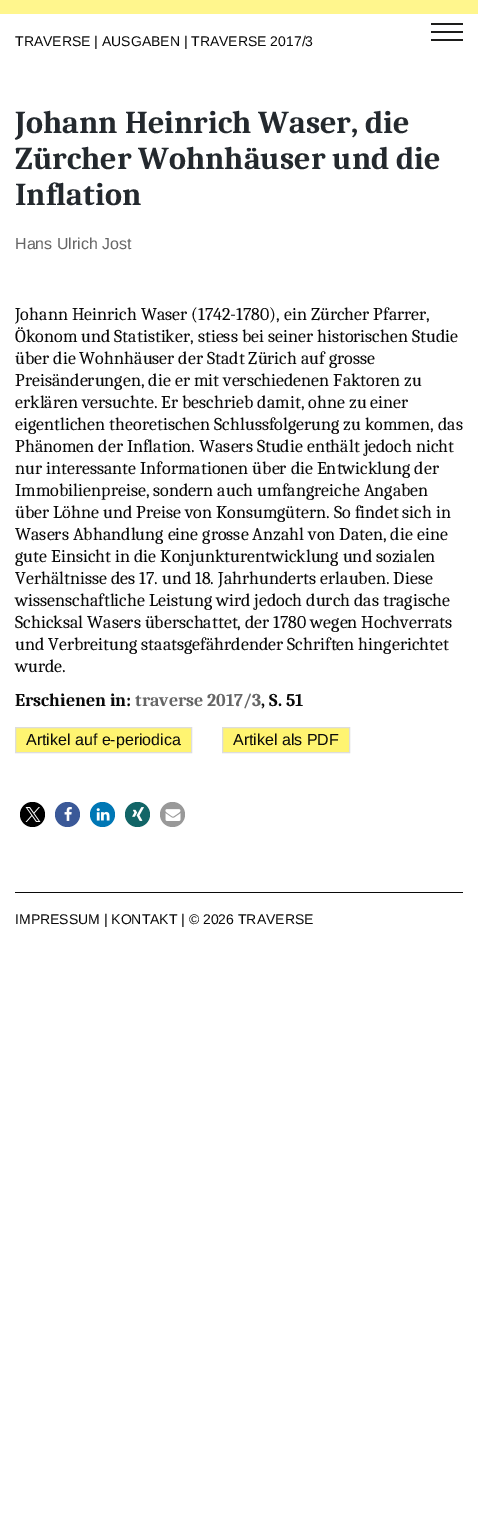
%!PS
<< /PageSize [478 1533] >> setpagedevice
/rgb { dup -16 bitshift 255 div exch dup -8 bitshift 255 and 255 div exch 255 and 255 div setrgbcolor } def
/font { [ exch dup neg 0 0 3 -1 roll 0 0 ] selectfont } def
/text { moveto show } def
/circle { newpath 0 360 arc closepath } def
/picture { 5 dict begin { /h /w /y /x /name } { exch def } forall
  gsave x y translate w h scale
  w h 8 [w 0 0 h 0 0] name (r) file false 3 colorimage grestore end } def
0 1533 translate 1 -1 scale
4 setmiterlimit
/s1 { /Arimo-Regular 14 font 16#0A0A0A rgb } def
/s2 { /Caladea-Bold 32 font 16#24292E rgb } def
/s3 { /Arimo-Regular 16 font 16#666666 rgb } def
/s4 { /Caladea-Regular 18 font 16#0A0A0A rgb } def
/s5 { /Caladea-Bold 18 font 16#0A0A0A rgb } def
/s6 { /Caladea-Bold 18 font 16#666666 rgb } def
/s7 { /Arimo-Regular 16 font 16#0A0A0A rgb } def
16#FFFFFF rgb
0 0 478 1533 rectfill
16#FFF68D rgb
0 0 478 14 rectfill
(pic1.raw) 431 23 32 18 picture
s1
(TRAVERSE | AUSGABEN | TRAVERSE 2017/3) 15 46 text
s2
(Johann Heinrich Waser, die) 15 133 text
(Zürcher Wohnhäuser und die) 15 169 text
(Inflation) 15 205 text
s3
(Hans Ulrich Jost) 15 249 text
s4
(Johann Heinrich Waser \(1742-1780\), ein Zürcher Pfarrer,) 15 320 text
(Ökonom und Statistiker, stiess bei seiner historischen Studie) 15 342 text
(über die Wohnhäuser der Stadt Zürich auf grosse) 15 364 text
(Preisänderungen, die er mit verschiedenen Faktoren zu) 15 386 text
(erklären versuchte. Er beschrieb damit, ohne zu einer) 15 408 text
(eigentlichen theoretischen Schlussfolgerung zu kommen, das) 15 430 text
(Phänomen der Inflation. Wasers Studie enthält jedoch nicht) 15 452 text
(nur interessante Informationen über die Entwicklung der) 15 474 text
(Immobilienpreise, sondern auch umfangreiche Angaben) 15 496 text
(über Löhne und Preise von Konsumgütern. So findet sich in) 15 518 text
(Wasers Abhandlung eine grosse Anzahl von Daten, die eine) 15 540 text
(gute Einsicht in die Konjunkturentwicklung und sozialen) 15 562 text
(Verhältnisse des 17. und 18. Jahrhunderts erlauben. Diese) 15 584 text
(wissenschaftliche Leistung wird jedoch durch das tragische) 15 606 text
(Schicksal Wasers überschattet, der 1780 wegen Hochverrats) 15 628 text
(und Verbreitung staatsgefährdender Schriften hingerichtet) 15 650 text
(wurde.) 15 672 text
s5
(Erschienen in:) 15 706 text
s6
(traverse 2017/3) 135 706 text
s5
(, S. 51) 261 706 text
16#FFF471 rgb
15.5 727.5 moveto 191.5 727.5 lineto 191.5 752.5 lineto 15.5 752.5 lineto closepath gsave fill grestore
16#DDDDDD rgb
stroke
s7
(Artikel auf e-periodica) 26 745 text
16#FFF471 rgb
222.5 727.5 moveto 349.5 727.5 lineto 349.5 752.5 lineto 222.5 752.5 lineto closepath gsave fill grestore
16#DDDDDD rgb
stroke
s7
(Artikel als PDF) 233 745 text
16#000000 rgb
32.5 814.5 12.5 circle fill
(pic2.raw) 25 807 16 15 picture
16#3B5998 rgb
67.5 814.5 12.5 circle fill
(pic3.raw) 64 807 8 14 picture
16#0077B5 rgb
102.5 814.5 12.5 circle fill
(pic4.raw) 96 808 14 13 picture
16#126567 rgb
137.5 814.5 12.5 circle fill
(pic5.raw) 132 807 12 14 picture
16#999999 rgb
172.5 814.5 12.5 circle fill
(pic6.raw) 165 809 16 12 picture
16#0A0A0A rgb
15 892 448 1 rectfill
s1
(IMPRESSUM | KONTAKT | © 2026 TRAVERSE) 15 924 text
showpage
